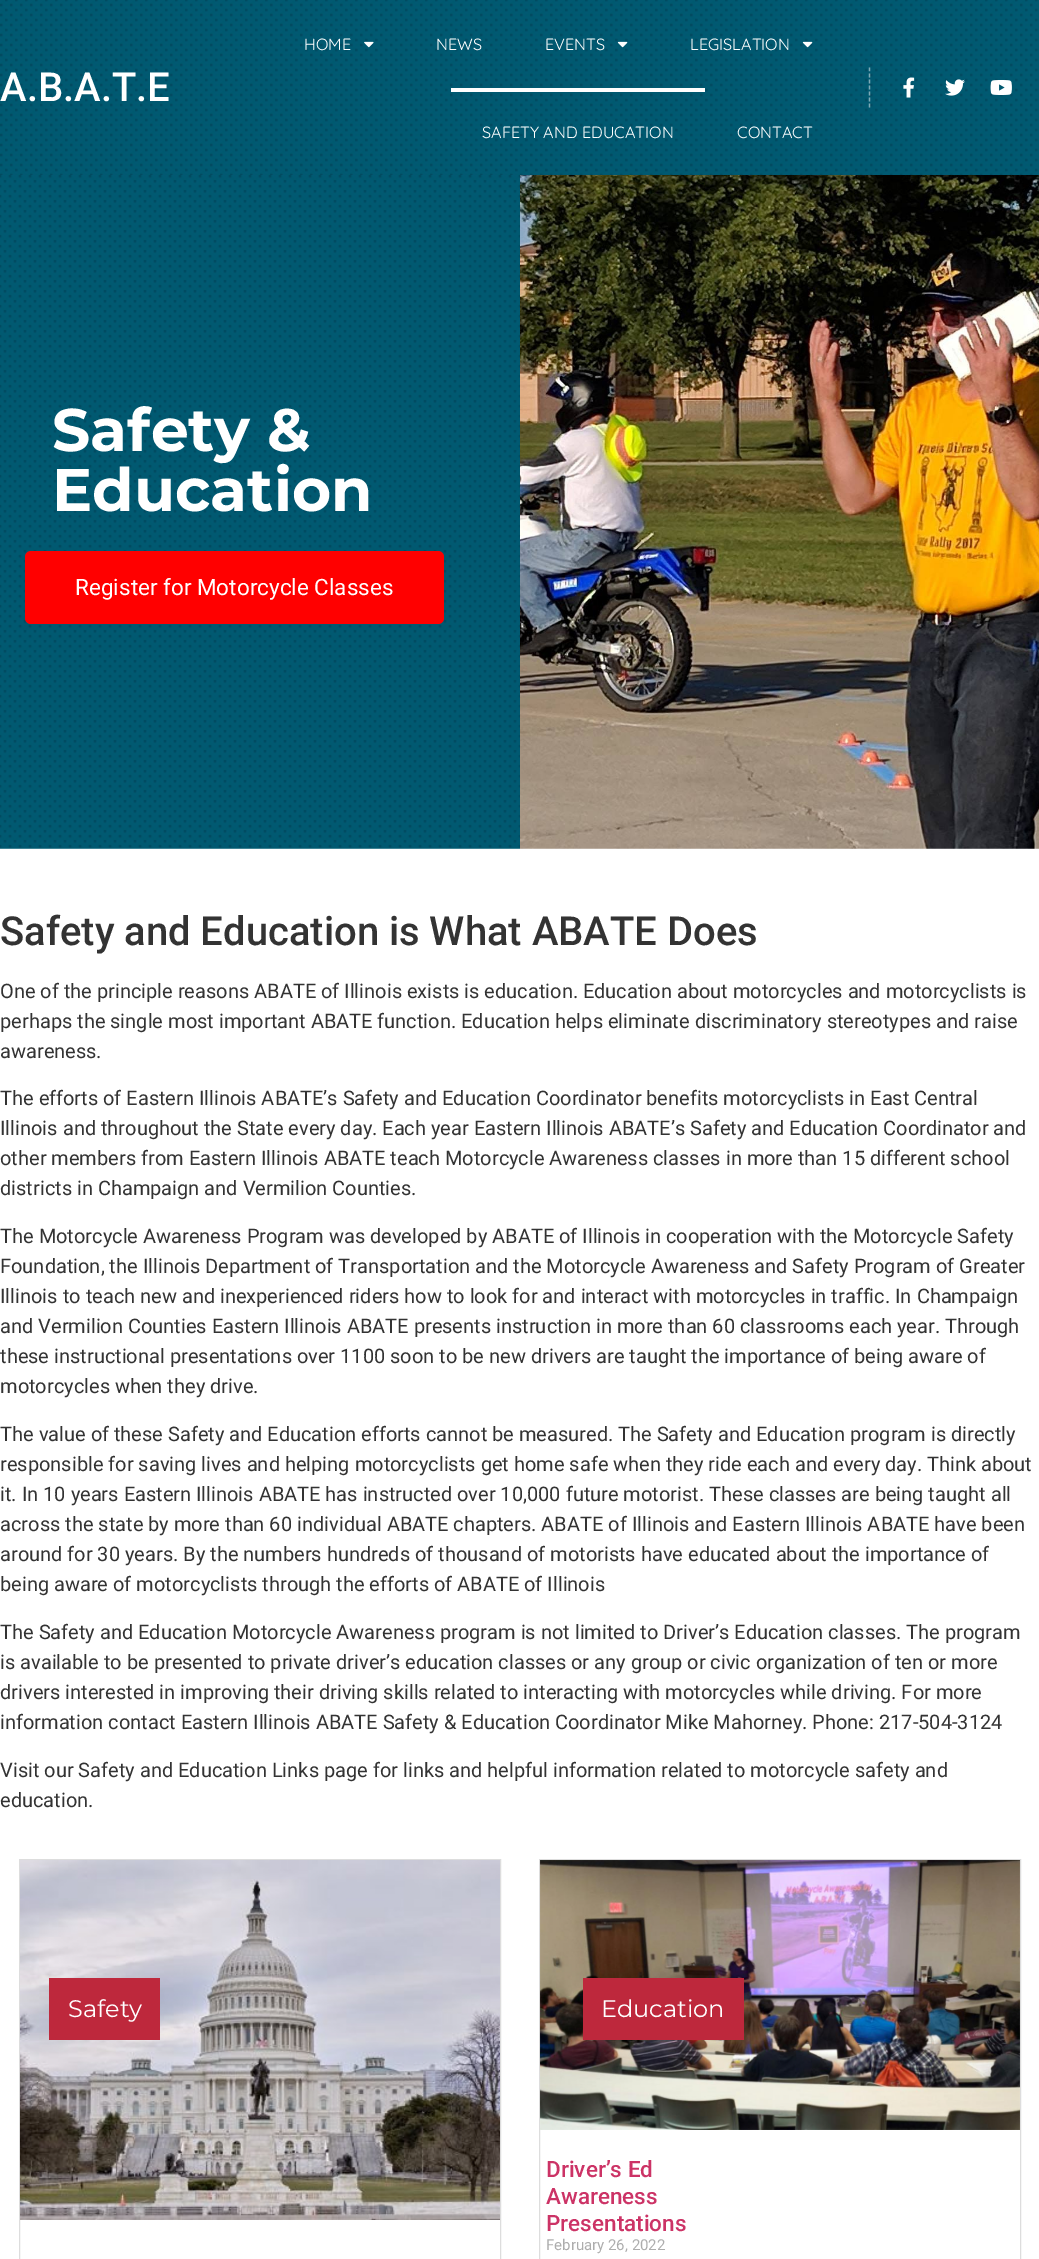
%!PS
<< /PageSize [1039 2259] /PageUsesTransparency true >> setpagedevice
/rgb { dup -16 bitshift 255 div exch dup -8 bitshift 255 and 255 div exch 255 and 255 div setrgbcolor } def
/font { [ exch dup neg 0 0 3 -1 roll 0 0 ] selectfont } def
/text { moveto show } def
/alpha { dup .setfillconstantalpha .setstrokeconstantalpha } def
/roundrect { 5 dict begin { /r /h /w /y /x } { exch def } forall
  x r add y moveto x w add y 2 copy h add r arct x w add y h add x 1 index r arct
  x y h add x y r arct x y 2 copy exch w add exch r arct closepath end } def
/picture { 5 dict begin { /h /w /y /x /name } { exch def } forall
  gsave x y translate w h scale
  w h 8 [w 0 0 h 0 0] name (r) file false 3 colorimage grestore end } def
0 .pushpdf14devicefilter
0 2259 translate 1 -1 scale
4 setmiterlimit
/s1 { /Roboto-Medium 40 font 16#FFFFFF rgb } def
/s2 { /Quicksand-Regular 16.25 font 16#FFFFFF rgb } def
/s3 { /Montserrat-Bold 60 font 16#FFFFFF rgb } def
/s4 { /Roboto-Regular 22.5 font 16#FFFFFF rgb } def
/s5 { /Roboto-Medium 40 font 16#333333 rgb } def
/s6 { /Roboto-Regular 20 font 16#333333 rgb } def
/s7 { /Montserrat-Regular 24 font 16#FFFFFF rgb } def
/s8 { /Roboto-Medium 22.5 font 16#CC3366 rgb } def
/s9 { /Roboto-Regular 15 font 16#ADADAD rgb } def
16#FFFFFF rgb
0 0 1039 2259 rectfill
(pic1.raw) 0 0 1039 175 picture
s1
(A.B.A.T.E) 0 101 text
s2
(HOME) 304 50 text
(pic2.raw) 364 41 10 7 picture
(NEWS) 436 50 text
(EVENTS) 545 50 text
(pic3.raw) 617 41 11 7 picture
(LEGISLATION) 690 50 text
(pic4.raw) 802 41 11 7 picture
451 88 254 4 rectfill
(SAFETY AND EDUCATION) 482 138 text
(CONTACT) 737 138 text
0.49 alpha
1.2 setlinewidth
[3.75 2.29] 0 setdash
869.5 67.5 moveto 869.5 107.5 lineto stroke
1 alpha
(pic5.raw) 903 77 12 21 picture
(pic6.raw) 945 79 20 17 picture
(pic7.raw) 990 80 22 15 picture
(pic8.raw) 0 175 520 674 picture
s3
(Safety &) 52 451 text
(Education) 52 511 text
16#FF0000 rgb
25 551 419 73 6 roundrect fill
s4
(Register for Motorcycle Classes) 75 595 text
(pic9.raw) 520 175 519 674 picture
s5
(Safety and Education is What ABATE Does) 0 945 text
s6
(One of the principle reasons ABATE of Illinois exists is education. Education about motorcycles and motorcyclists is) 0 998 text
(perhaps the single most important ABATE function. Education helps eliminate discriminatory stereotypes and raise) 0 1028 text
(awareness.) 0 1058 text
(The efforts of Eastern Illinois ABATE’s Safety and Education Coordinator benefits motorcyclists in East Central) 0 1105 text
(Illinois and throughout the State every day. Each year Eastern Illinois ABATE’s Safety and Education Coordinator and) 0 1135 text
(other members from Eastern Illinois ABATE teach Motorcycle Awareness classes in more than 15 different school) 0 1165 text
(districts in Champaign and Vermilion Counties.) 0 1195 text
(The Motorcycle Awareness Program was developed by ABATE of Illinois in cooperation with the Motorcycle Safety) 0 1243 text
(Foundation, the Illinois Department of Transportation and the Motorcycle Awareness and Safety Program of Greater) 0 1273 text
(Illinois to teach new and inexperienced riders how to look for and interact with motorcycles in traffic. In Champaign) 0 1303 text
(and Vermilion Counties Eastern Illinois ABATE presents instruction in more than 60 classrooms each year. Through) 0 1333 text
(these instructional presentations over 1100 soon to be new drivers are taught the importance of being aware of) 0 1363 text
(motorcycles when they drive.) 0 1393 text
(The value of these Safety and Education efforts cannot be measured. The Safety and Education program is directly) 0 1441 text
(responsible for saving lives and helping motorcyclists get home safe when they ride each and every day. Think about) 0 1471 text
(it. In 10 years Eastern Illinois ABATE has instructed over 10,000 future motorist. These classes are being taught all) 0 1501 text
(across the state by more than 60 individual ABATE chapters. ABATE of Illinois and Eastern Illinois ABATE have been) 0 1531 text
(around for 30 years. By the numbers hundreds of thousand of motorists have educated about the importance of) 0 1561 text
(being aware of motorcyclists through the efforts of ABATE of Illinois) 0 1591 text
(The Safety and Education Motorcycle Awareness program is not limited to Driver’s Education classes. The program) 0 1639 text
(is available to be presented to private driver’s education classes or any group or civic organization of ten or more) 0 1669 text
(drivers interested in improving their driving skills related to interacting with motorcycles while driving. For more) 0 1699 text
(information contact Eastern Illinois ABATE Safety & Education Coordinator Mike Mahorney. Phone: 217-504-3124) 0 1729 text
(Visit our Safety and Education Links page for links and helpful information related to motorcycle safety and) 0 1777 text
(education.) 0 1807 text
16#DDDDDD rgb
1 setlinewidth
[] 0 setdash
19.5 1859.5 481 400 rectstroke
(pic10.raw) 20 1860 480 360 picture
16#BE283C rgb
49 1978 111 62 rectfill
s7
(Safety) 68 2017 text
16#DDDDDD rgb
539.5 1859.5 481 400 rectstroke
(pic11.raw) 540 1860 480 270 picture
16#BE283C rgb
583 1978 161 62 rectfill
s7
(Education) 601 2017 text
s8
(Driver’s Ed) 546 2177 text
(Awareness) 546 2204 text
(Presentations) 546 2231 text
s9
(February 26, 2022) 546 2250 text
.poppdf14devicefilter showpage
